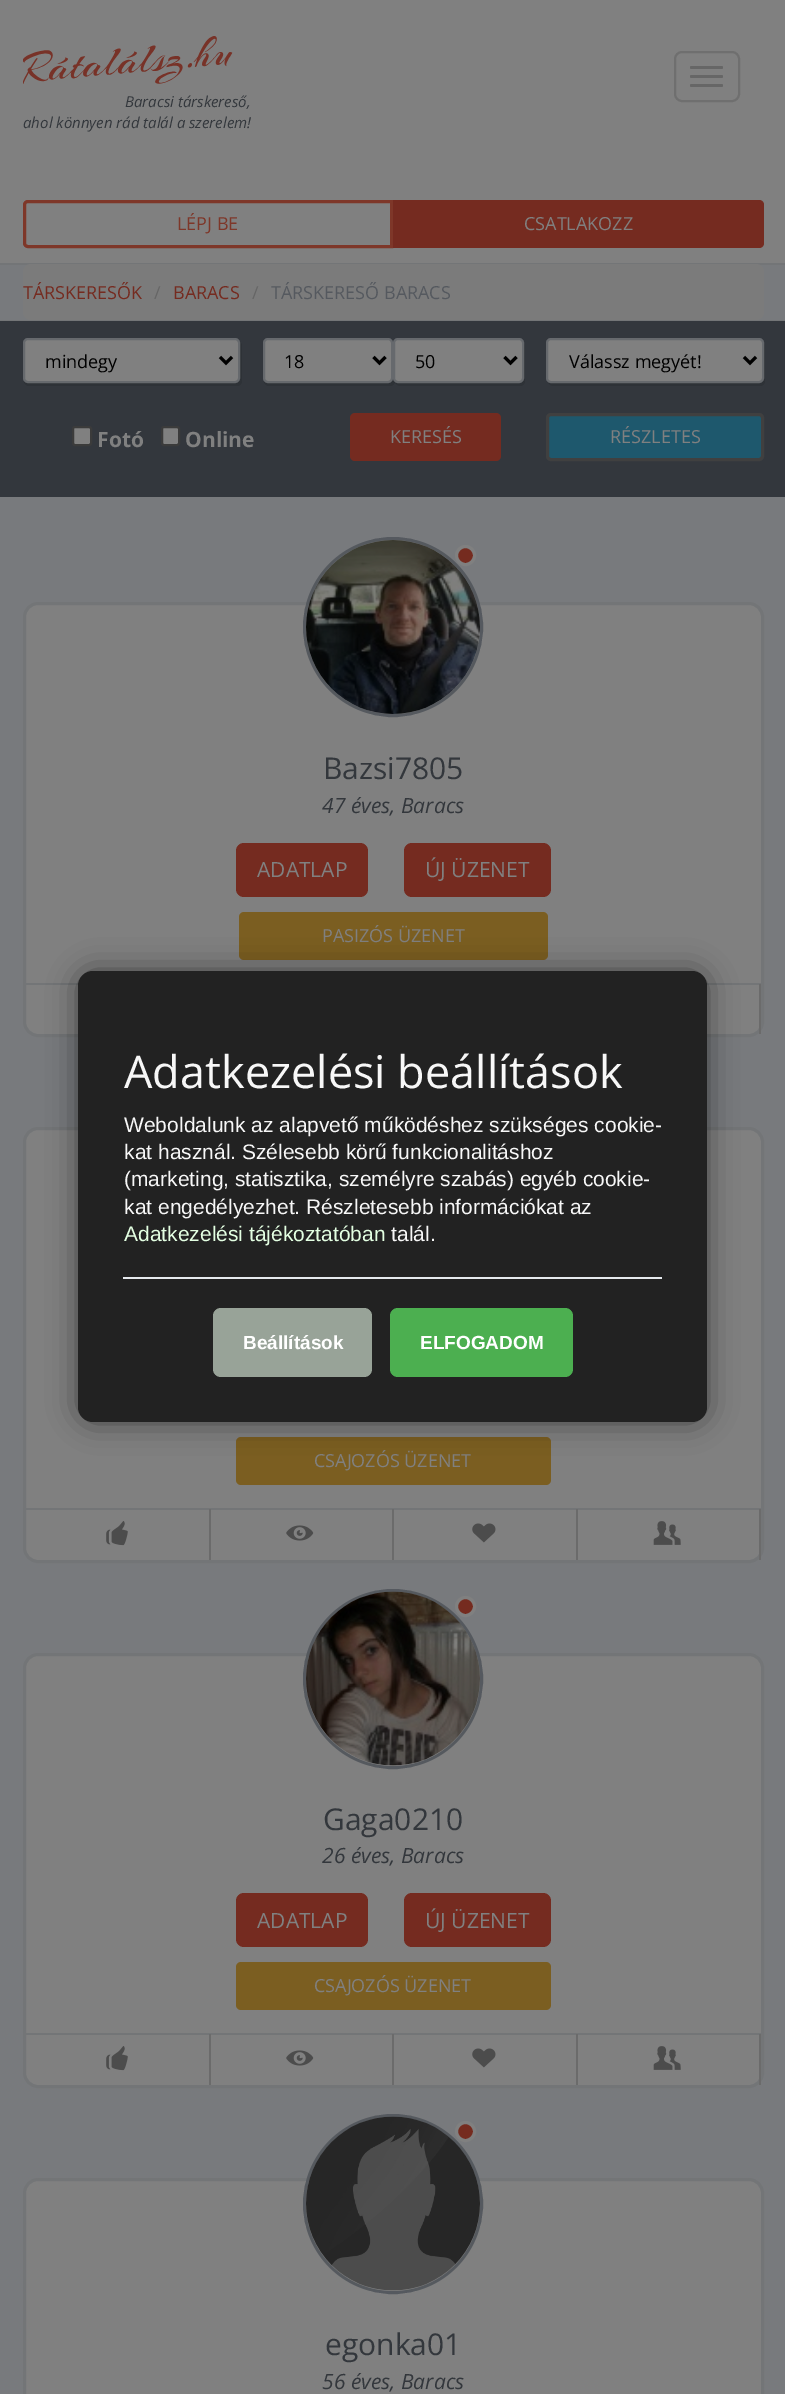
%!PS
<< /PageSize [785 2394] /PageUsesTransparency true >> setpagedevice
/rgb { dup -16 bitshift 255 div exch dup -8 bitshift 255 and 255 div exch 255 and 255 div setrgbcolor } def
/font { [ exch dup neg 0 0 3 -1 roll 0 0 ] selectfont } def
/text { moveto show } def
/alpha { dup .setfillconstantalpha .setstrokeconstantalpha } def
/circle { newpath 0 360 arc closepath } def
/roundrect { 5 dict begin { /r /h /w /y /x } { exch def } forall
  x r add y moveto x w add y 2 copy h add r arct x w add y h add x 1 index r arct
  x y h add x y r arct x y 2 copy exch w add exch r arct closepath end } def
/shadow { 12 dict begin { /a /b /q /h /w /y /x } { exch def } forall gsave /was 0 def
  9 -2 -9 { dup b mul 4 div /e exch def 1 sub .425 mul 2.718 exch exp 1 add a .99 .min exch div /now exch def
    1 1 now sub 1 was sub div sub alpha /was now def
    w h .min e 2 mul add 0 gt { x e sub y e sub w e 2 mul add h e 2 mul add
      q e add b .6 mul add w h .min 2 div e add .min 0 .max roundrect fill } if } for grestore end } def
/picture { 5 dict begin { /h /w /y /x /name } { exch def } forall
  gsave x y translate w h scale
  w h 8 [w 0 0 h 0 0] name (r) file false 3 colorimage grestore end } def
0 .pushpdf14devicefilter
0 2394 translate 1 -1 scale
4 setmiterlimit
/s1 { /OpenSans-Italic 15 font 16#33373C rgb } def
/s2 { /OpenSans-Regular 18 font 16#7E3729 rgb } def
/s3 { /OpenSans-Regular 18 font 16#808080 rgb } def
/s4 { /OpenSans-Regular 18 font 16#752B20 rgb } def
/s5 { /OpenSans-Regular 18 font 16#666666 rgb } def
/s6 { /OpenSans-Regular 18 font 16#55595F rgb } def
/s7 { /OpenSans-Regular 18 font 16#000000 rgb } def
/s8 { /OpenSans-Bold 21 font 16#808080 rgb } def
/s9 { /OpenSans-Regular 30 font 16#33373C rgb } def
/s10 { /OpenSans-Italic 21 font 16#33373C rgb } def
/s11 { /OpenSans-Regular 21 font 16#808080 rgb } def
/s12 { /OpenSans-Regular 45 font 16#F7F7F7 rgb } def
/s13 { /LiberationSans-Regular 21 font 16#F7F7F7 rgb } def
/s14 { /LiberationSans-Regular 21 font 16#E3FFE2 rgb } def
/s15 { /LiberationSans-Bold 19 font 16#FFFFFF rgb } def
16#787A7D rgb
0 0 785 2394 rectfill
16#808080 rgb
0 0 785 263 rectfill
16#737577 rgb
0 263 785 2 rectfill
16#6F6F6F rgb
2 setlinewidth
675 52 64 49 7 roundrect stroke
16#666666 rgb
690 66 33 3 1.5 roundrect fill
690 75 33 3 1.5 roundrect fill
690 84 33 3 1.5 roundrect fill
(pic1.raw) 23 36 210 48 picture
s1
(Baracsi társkereső,) 125 107 text
(ahol könnyen rád talál a szerelem!) 23 128 text
16#7E3729 rgb
3 setlinewidth
28 201.5 moveto 391.5 201.5 lineto 391.5 246.5 lineto 28 246.5 lineto 26 246.5 24.5 245 24.5 243 curveto 24.5 205 lineto 24.5 203 26 201.5 28 201.5 curveto closepath stroke
s2
(LÉPJ BE) 177 230 text
16#752B20 rgb
393 200 moveto 759 200 lineto 762 200 764 202 764 205 curveto 764 243 lineto 764 246 762 248 759 248 curveto 393 248 lineto closepath fill
s3
(CSATLAKOZZ) 524 230 text
16#737577 rgb
0 320 785 1 rectfill
16#7B7B7B rgb
23 264 741 56 8 roundrect fill
s4
(TÁRSKERESŐK) 23 299 text
s5
(/) 154 299 text
s4
(BARACS) 173 299 text
s5
(/) 252 299 text
s6
(TÁRSKERESŐ BARACS) 271 299 text
16#33373D rgb
0 321 785 176 rectfill
16#2E3237 rgb
24 381 moveto 24 384 26 386 29 386 curveto 237 386 lineto 240 386 242 384 242 381 curveto 242 346 lineto 242 344 241 343 240 342 curveto 240 378 lineto 240 380 238 382 236 382 curveto 27 382 lineto 26 382 25 382 24 381 curveto closepath fill
16#808080 rgb
24 339 215 43 4 roundrect gsave fill grestore
16#66696D rgb
2 setlinewidth
stroke
16#000000 rgb
3 setlinewidth
220 357 moveto 226 363 lineto 232 357 lineto stroke
(mindegy) 45 368 text
16#2E3237 rgb
264 381 moveto 264 384 266 386 269 386 curveto 390 386 lineto 393 386 395 384 395 381 curveto 395 346 lineto 395 344 394 343 393 342 curveto 393 378 lineto 393 380 391 382 388 382 curveto 267 382 lineto 266 382 265 382 264 381 curveto closepath fill
16#808080 rgb
264 339 128 43 4 roundrect gsave fill grestore
16#66696D rgb
2 setlinewidth
stroke
16#000000 rgb
3 setlinewidth
373.5 357 moveto 379.5 363 lineto 385.5 357 lineto stroke
(18) 284 368 text
16#2E3237 rgb
395 382 moveto 395 384 398 386 400 386 curveto 520 386 lineto 523 386 525 384 525 381 curveto 525 346 lineto 525 345 524 343 524 342 curveto 524 378 lineto 524 380 521 382 519 382 curveto 398 382 lineto closepath fill
16#808080 rgb
394 339 129 43 4 roundrect gsave fill grestore
16#66696D rgb
2 setlinewidth
stroke
16#000000 rgb
3 setlinewidth
504.5 357 moveto 510.5 363 lineto 516.5 357 lineto stroke
(50) 415 368 text
16#2E3237 rgb
548 382 moveto 548 384 551 386 553 386 curveto 760 386 lineto 763 386 765 384 765 381 curveto 765 346 lineto 765 345 764 343 764 342 curveto 764 378 lineto 764 380 761 382 759 382 curveto 550 382 lineto closepath fill
16#808080 rgb
547 339 216 43 4 roundrect gsave fill grestore
16#66696D rgb
2 setlinewidth
stroke
16#000000 rgb
3 setlinewidth
744 357 moveto 750 363 lineto 756 357 lineto stroke
(Válassz megyét!) 569 368 text
16#808080 rgb
73 427 18 18 2 roundrect gsave fill grestore
16#3B3B3B rgb
2 setlinewidth
stroke
s8
(Fotó) 97 447 text
162 427 17 18 2 roundrect gsave fill grestore
16#3B3B3B rgb
stroke
s8
(Online) 185 447 text
16#752B20 rgb
350 413 151 48 5 roundrect fill
s3
(KERESÉS) 390 443 text
16#1E586D rgb
547.5 414.5 215 45 3.5 roundrect gsave fill grestore
16#404040 rgb
3 setlinewidth
stroke
s3
(RÉSZLETES) 610 443 text
24.5 603.5 738 432 13.5 roundrect gsave fill grestore
16#737577 rgb
stroke
16#55595F rgb
393 627 88.5 circle stroke
(pic2.raw) 306 540 174 174 picture
16#752B1F rgb
465.5 555.5 9 circle gsave fill grestore
16#808080 rgb
stroke
s9
(Bazsi7805) 323 779 text
s10
(47 éves, Baracs) 322 813 text
16#752B20 rgb
236 843 132 54 8 roundrect fill
s11
(ADATLAP) 257 877 text
16#752B20 rgb
404 843 147 54 8 roundrect fill
s11
(ÚJ ÜZENET) 425 877 text
16#7B5E21 rgb
239 912 309 48 5 roundrect fill
s3
(PASIZÓS ÜZENET) 322 942 text
16#737577 rgb
26 983 735 2 rectfill
16#6B6B6B rgb
759 984 2 50 rectfill
16#808080 rgb
24.5 1128.5 738 433 13.5 roundrect gsave fill grestore
16#737577 rgb
stroke
16#7B5E21 rgb
236 1437 315 48 5 roundrect fill
s3
(CSAJOZÓS ÜZENET) 314 1467 text
16#737577 rgb
26 1508 735 2 rectfill
16#6B6B6B rgb
209 1509 2 51 rectfill
(pic3.raw) 106 1521 22 25 picture
392 1509 2 51 rectfill
(pic4.raw) 286 1525 28 16 picture
576 1509 2 51 rectfill
(pic5.raw) 472 1523 24 20 picture
759 1509 2 51 rectfill
(pic6.raw) 653 1521 28 24 picture
16#808080 rgb
24.5 1654.5 738 432 13.5 roundrect gsave fill grestore
16#737577 rgb
stroke
16#55595F rgb
393 1679 88.5 circle stroke
(pic7.raw) 306 1591 174 175 picture
16#752B1F rgb
465.5 1606.5 9 circle gsave fill grestore
16#808080 rgb
stroke
s9
(Gaga0210) 323 1830 text
s10
(26 éves, Baracs) 322 1863 text
16#752B20 rgb
236 1893 132 54 8 roundrect fill
s11
(ADATLAP) 257 1928 text
16#752B20 rgb
404 1893 147 54 8 roundrect fill
s11
(ÚJ ÜZENET) 425 1928 text
16#7B5E21 rgb
236 1962 315 48 5 roundrect fill
s3
(CSAJOZÓS ÜZENET) 314 1992 text
16#737577 rgb
26 2033 735 2 rectfill
16#6B6B6B rgb
209 2034 2 51 rectfill
(pic3.raw) 106 2046 22 25 picture
392 2034 2 51 rectfill
(pic4.raw) 286 2050 28 16 picture
576 2034 2 51 rectfill
(pic5.raw) 472 2048 24 20 picture
759 2034 2 51 rectfill
(pic6.raw) 653 2046 28 24 picture
16#808080 rgb
24.5 2179.5 738 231 13.5 roundrect gsave fill grestore
16#737577 rgb
stroke
16#55595F rgb
393 2204 88.5 circle stroke
(pic8.raw) 306 2116 174 175 picture
16#752B1F rgb
465.5 2131.5 9 circle gsave fill grestore
16#808080 rgb
stroke
s9
(egonka01) 325 2355 text
s10
(56 éves, Baracs) 322 2389 text
16#000000 rgb
78 971 629 451 15 15 0.5 shadow
16#222222 rgb
78 971 629 451 15 roundrect fill
s12
(Adatkezelési beállítások) 124 1088 text
s13
(Weboldalunk az alapvető működéshez szükséges cookie-) 124 1132 text
(kat használ. Szélesebb körű funkcionalitáshoz) 124 1159 text
(\(marketing, statisztika, személyre szabás\) egyéb cookie-) 124 1186 text
(kat engedélyezhet. Részletesebb információkat az) 124 1214 text
s14
(Adatkezelési tájékoztatóban) 124 1241 text
s13
(talál.) 391 1241 text
16#E5E9ED rgb
123 1277 539 2 rectfill
16#98A398 rgb
213 1308 159 69 8 roundrect fill
s15
(Beállítások) 243 1349 text
16#4CAF50 rgb
390 1308 183 69 8 roundrect fill
s15
(ELFOGADOM) 420 1349 text
.poppdf14devicefilter showpage
